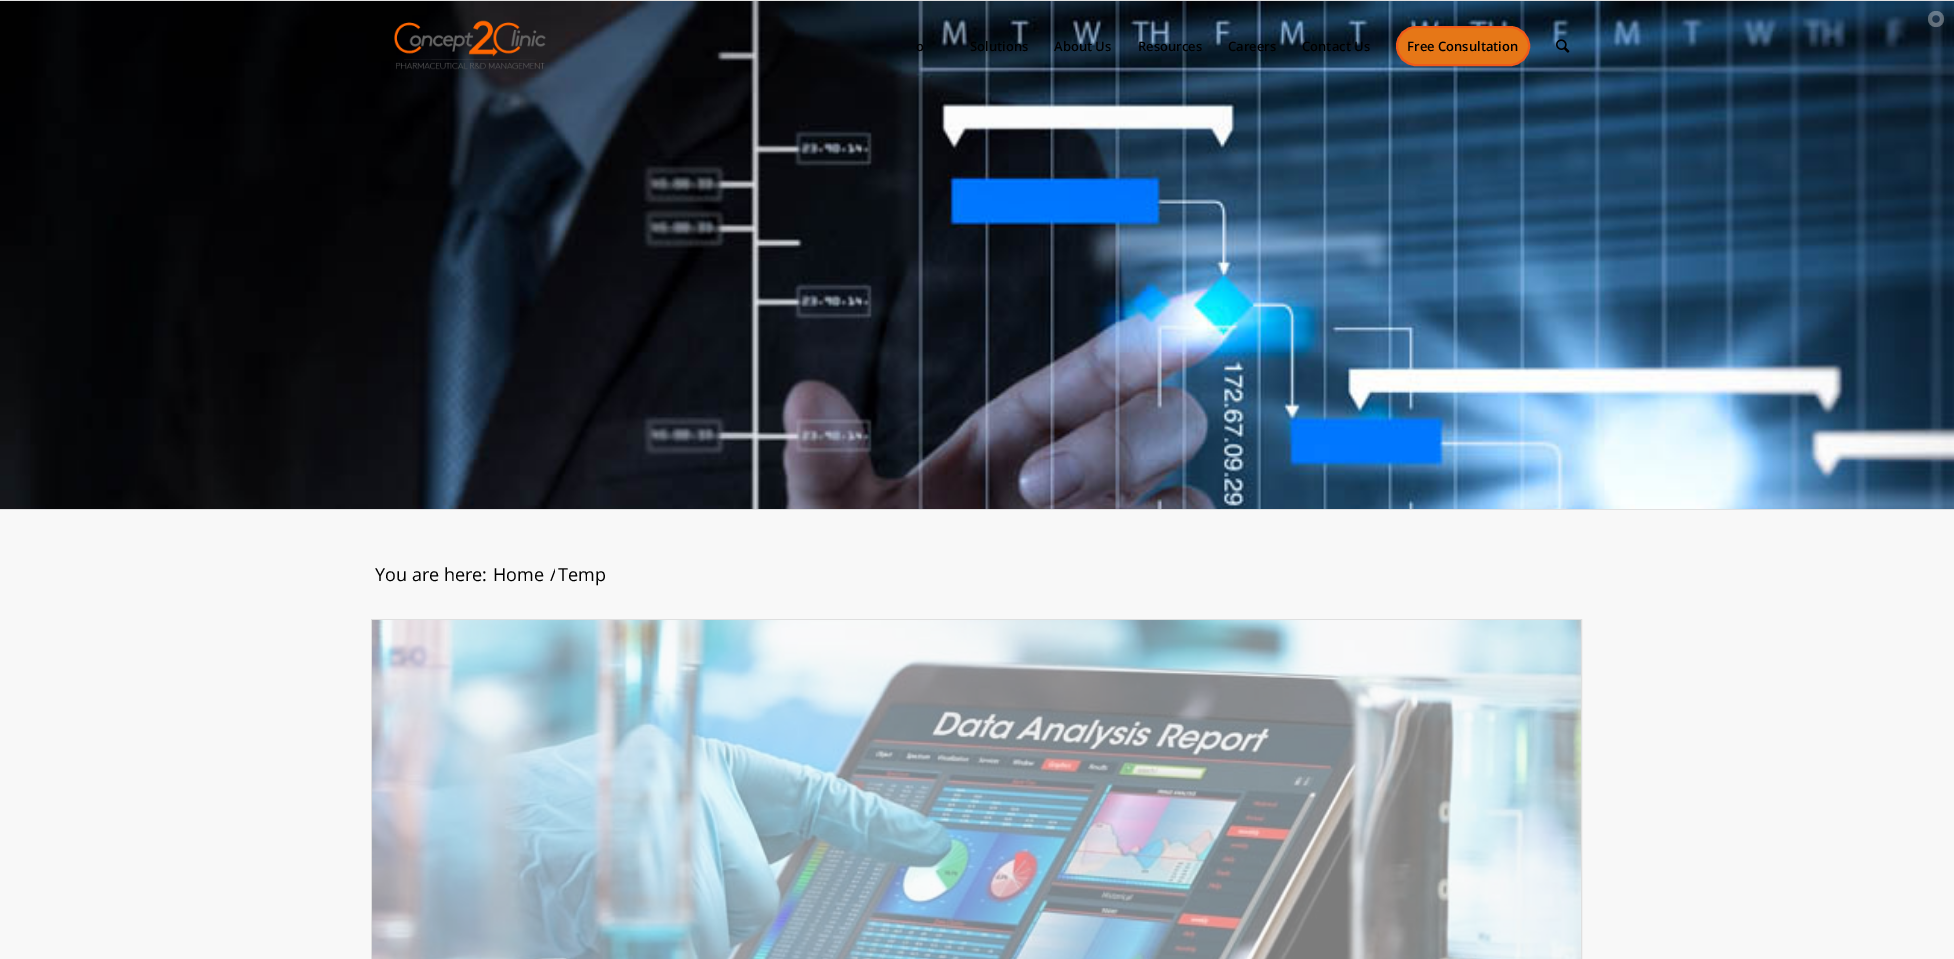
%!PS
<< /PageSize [1954 959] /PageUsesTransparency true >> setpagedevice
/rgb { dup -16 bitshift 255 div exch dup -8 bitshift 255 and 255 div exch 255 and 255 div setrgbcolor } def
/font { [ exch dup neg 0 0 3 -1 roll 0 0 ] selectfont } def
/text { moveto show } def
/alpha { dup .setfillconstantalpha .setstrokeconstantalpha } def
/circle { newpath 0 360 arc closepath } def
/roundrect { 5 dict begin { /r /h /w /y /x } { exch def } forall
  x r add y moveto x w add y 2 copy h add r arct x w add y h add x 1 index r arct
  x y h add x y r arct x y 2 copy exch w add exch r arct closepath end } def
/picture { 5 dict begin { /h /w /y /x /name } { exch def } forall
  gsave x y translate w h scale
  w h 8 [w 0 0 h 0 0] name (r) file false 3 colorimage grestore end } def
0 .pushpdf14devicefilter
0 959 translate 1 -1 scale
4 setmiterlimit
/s1 { /OpenSans-SemiBold 13 font 16#000000 rgb } def
/s2 { /OpenSans-Regular 18 font 16#000000 rgb } def
16#E1E1E1 rgb
0 0 1954 959 rectfill
(pic3.raw) 0 1 1954 508 picture
(pic1.raw) 394 20 152 50 picture
s1
(o) 916 51 text
(Solutions) 970 51 text
(About Us) 1054 51 text
(Resources) 1138 51 text
(Careers) 1228 51 text
(Contact Us) 1302 51 text
16#E67717 rgb
1397 27 132 38 19 roundrect gsave fill grestore
16#F05A1A rgb
2 setlinewidth
stroke
s1
(Free Consultation) 1407 51 text
(pic2.raw) 1556 39 14 14 picture
0.07 alpha
16#E1E1E1 rgb
4 setlinewidth
1936 19 6 circle stroke
gsave
1928 11 8 16 rectclip
0.33 alpha
1936 25 moveto 1928 25 1928 13 1936 13 curveto 1944 13 1944 25 1936 25 curveto closepath stroke
grestore
gsave
1936 11 8 16 rectclip
0.33 alpha
1936 25 moveto 1928 25 1928 13 1936 13 curveto 1944 13 1944 25 1936 25 curveto closepath stroke
grestore
1 alpha
16#F8F8F8 rgb
0 510 1954 449 rectfill
s2
(You are here:) 375 581 text
(Home) 493 581 text
gsave
547 560 8 30 rectclip
(/) 550 581 text
grestore
(Temp) 558 581 text
16#DFDFDF rgb
1 setlinewidth
371.5 619.5 1210 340 rectstroke
(pic4.raw) 372 620 1209 339 picture
.poppdf14devicefilter showpage
